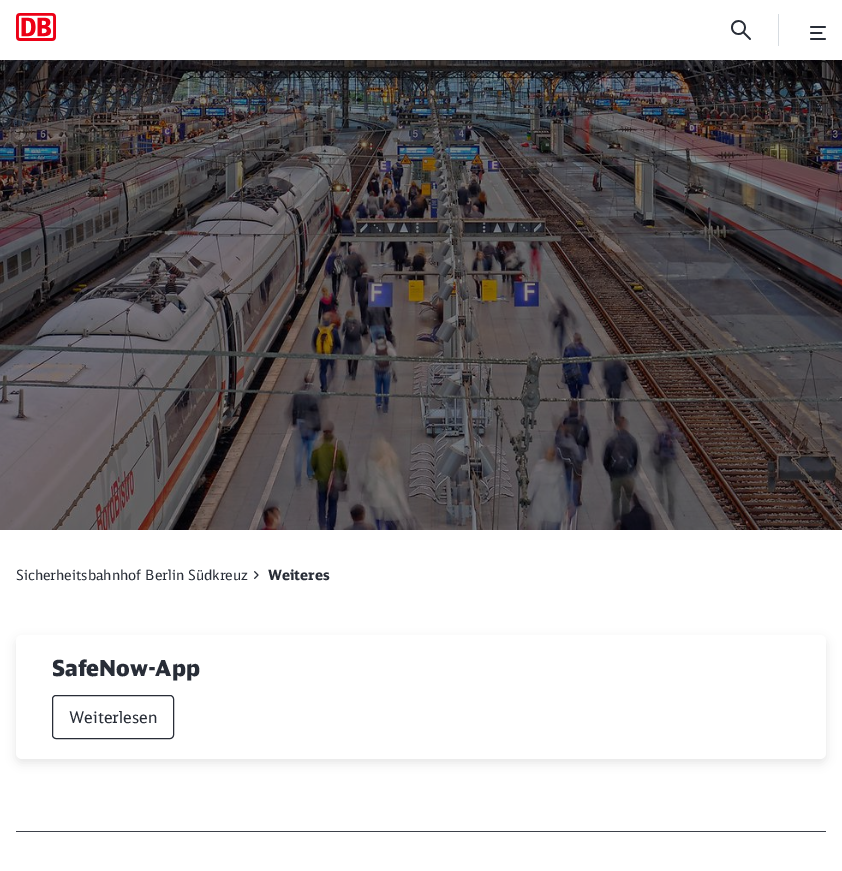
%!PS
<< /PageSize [842 871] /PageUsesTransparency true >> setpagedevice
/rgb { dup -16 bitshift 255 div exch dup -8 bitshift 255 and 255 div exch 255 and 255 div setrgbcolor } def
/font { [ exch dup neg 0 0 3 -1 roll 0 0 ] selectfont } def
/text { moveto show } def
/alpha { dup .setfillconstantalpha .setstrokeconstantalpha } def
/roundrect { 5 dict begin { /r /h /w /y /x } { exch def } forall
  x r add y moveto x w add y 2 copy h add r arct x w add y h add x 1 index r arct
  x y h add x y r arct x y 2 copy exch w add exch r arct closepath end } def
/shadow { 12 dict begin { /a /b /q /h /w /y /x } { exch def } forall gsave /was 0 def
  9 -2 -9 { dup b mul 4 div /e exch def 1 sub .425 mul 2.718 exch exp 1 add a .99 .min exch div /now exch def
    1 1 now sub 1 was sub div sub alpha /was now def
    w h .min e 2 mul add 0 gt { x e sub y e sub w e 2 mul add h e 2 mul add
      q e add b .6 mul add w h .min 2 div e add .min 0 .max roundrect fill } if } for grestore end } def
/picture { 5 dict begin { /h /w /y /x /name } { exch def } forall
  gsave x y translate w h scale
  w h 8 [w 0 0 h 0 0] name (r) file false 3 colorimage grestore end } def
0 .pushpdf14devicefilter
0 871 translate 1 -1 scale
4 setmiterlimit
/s1 { /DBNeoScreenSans-Regular 14 font 16#282D37 rgb } def
/s2 { /DBNeoScreenSans-Bold 14 font 16#282D37 rgb } def
/s3 { /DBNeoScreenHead-Black 22 font 16#282D37 rgb } def
/s4 { /DBNeoScreenSans-Regular 16 font 16#282D37 rgb } def
16#FFFFFF rgb
0 0 842 871 rectfill
(pic1.raw) 16 13 40 28 picture
(pic2.raw) 731 20 20 20 picture
16#D7DCE1 rgb
778 14 1 32 rectfill
(pic3.raw) 810 26 16 14 picture
(pic4.raw) 0 60 842 470 picture
s1
(Sicherheitsbahnhof Berlin Südkreuz) 16 580 text
(pic5.raw) 254 571 5 8 picture
s2
(Weiteres) 268 580 text
16#000000 rgb
16 639 810 124 6 5 0.1 shadow
16#FFFFFF rgb
16 635 810 124 6 roundrect fill
s3
(SafeNow-App) 52 676 text
52.5 695.5 121 43 3.5 roundrect stroke
s4
(Weiterlesen) 69 723 text
16#3E424B rgb
16 831 810 1 rectfill
.poppdf14devicefilter showpage
